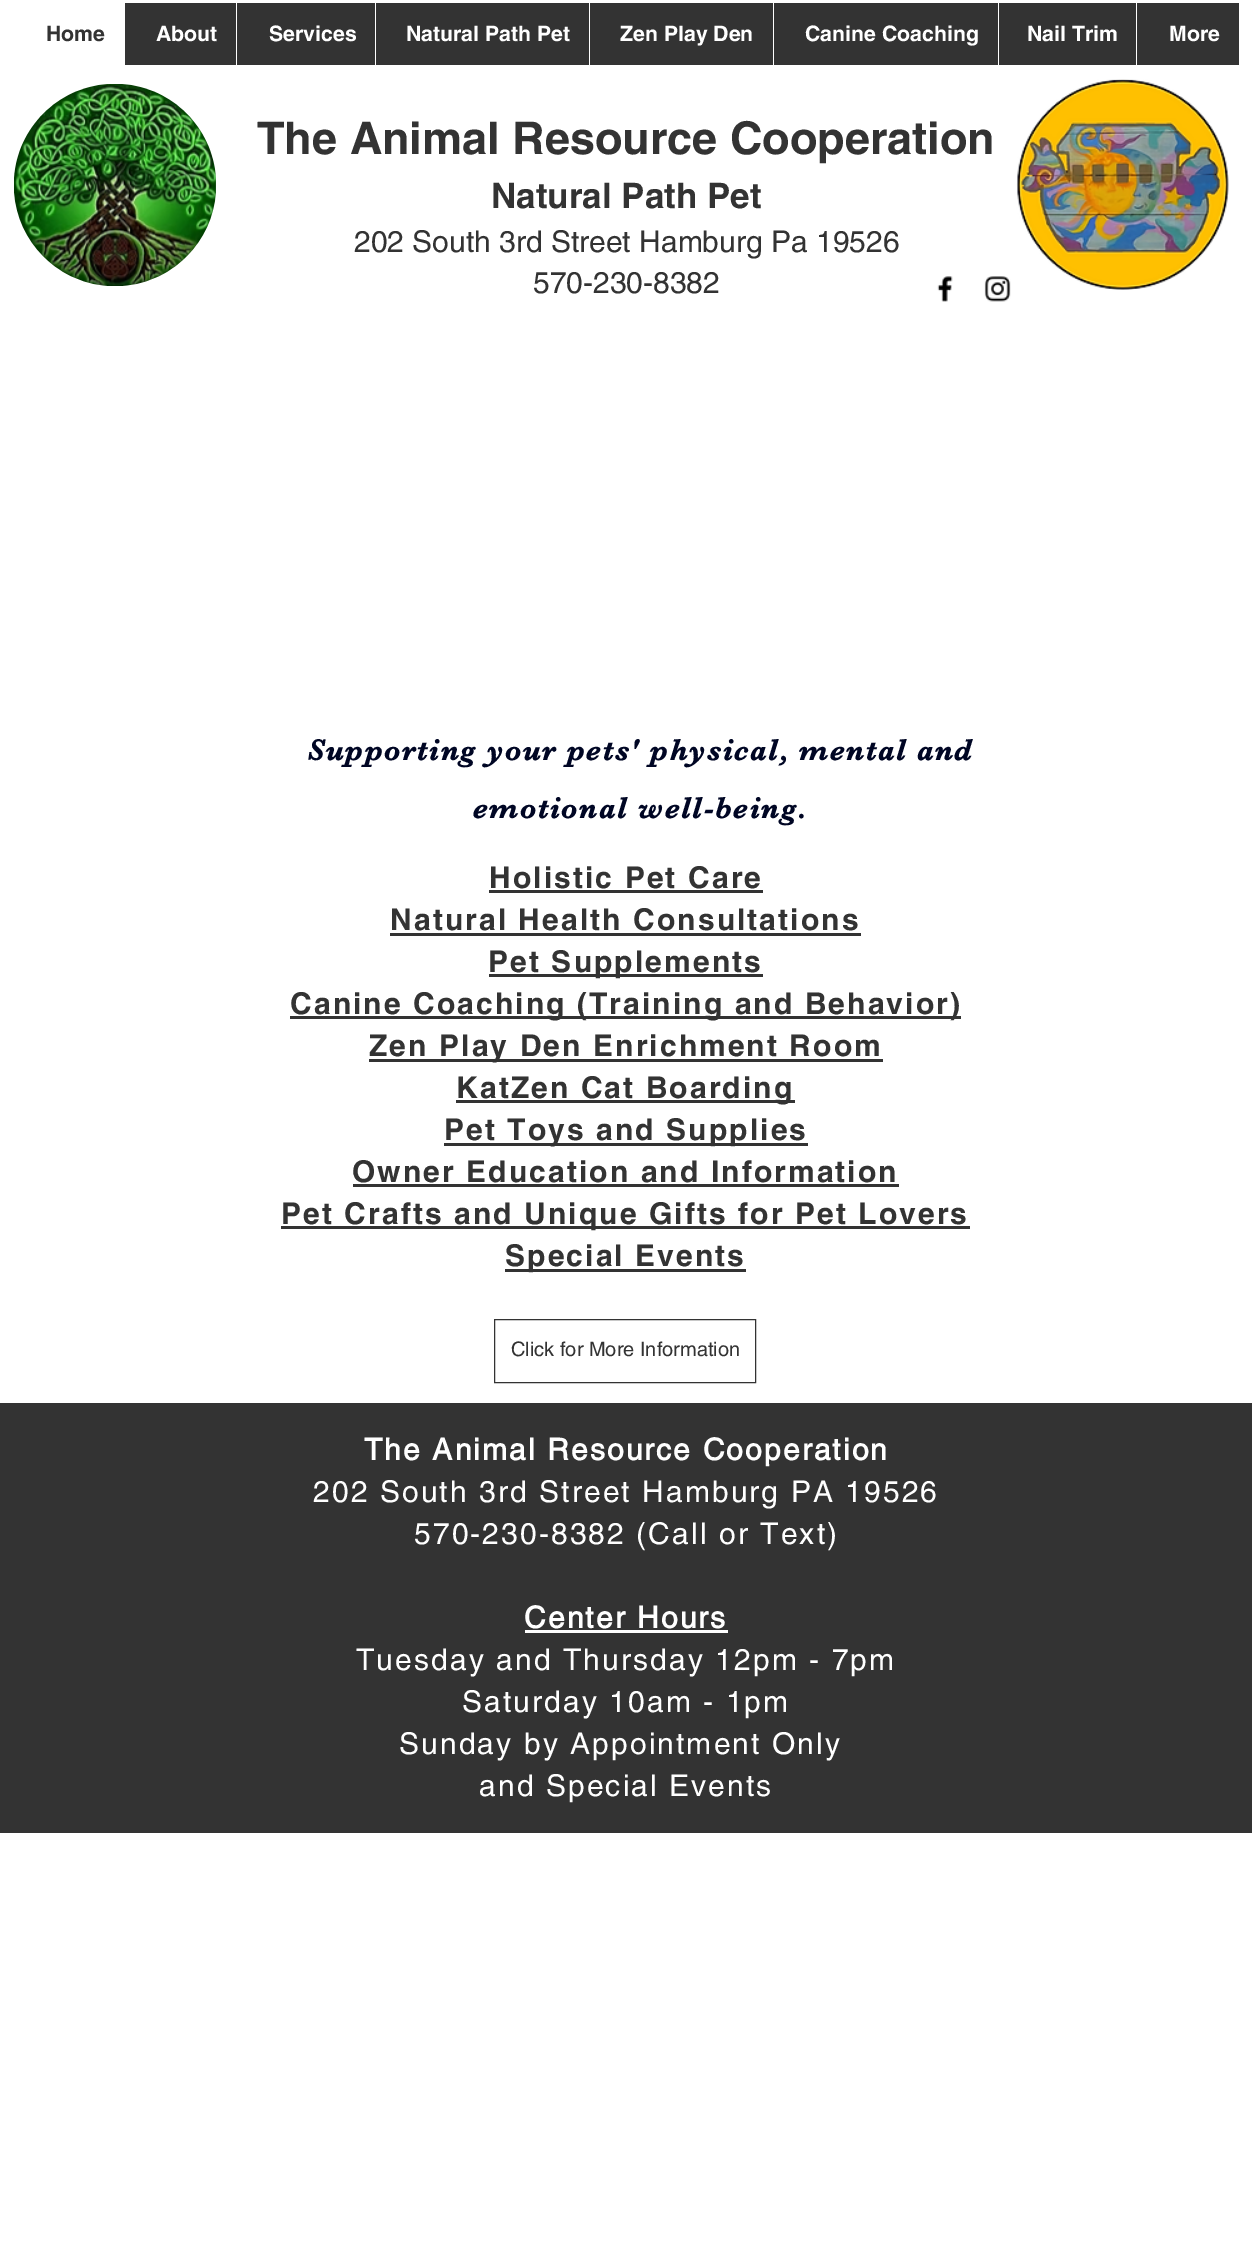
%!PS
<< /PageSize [1252 2244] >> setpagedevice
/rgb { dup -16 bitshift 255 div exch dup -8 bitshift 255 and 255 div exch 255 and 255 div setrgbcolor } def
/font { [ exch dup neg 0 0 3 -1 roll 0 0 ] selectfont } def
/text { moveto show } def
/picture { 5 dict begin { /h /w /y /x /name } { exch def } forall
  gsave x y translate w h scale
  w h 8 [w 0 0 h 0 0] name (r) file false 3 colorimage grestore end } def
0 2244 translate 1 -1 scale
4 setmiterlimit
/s1 { /helvetica-Bold 21.25 font 16#333333 rgb } def
/s2 { /helvetica-Bold 21.25 font 16#FFFFFF rgb } def
/s3 { /helvetica-Bold 45 font 16#333333 rgb } def
/s4 { /helvetica-Bold 35 font 16#333333 rgb } def
/s5 { /helvetica-Regular 30 font 16#333333 rgb } def
/s6 { /helvetica-Regular 20 font 16#333333 rgb } def
16#FFFFFF rgb
0 0 1252 2244 rectfill
16#333333 rgb
125 3 1114 62 rectfill
s1
(Home) 46 41 text
s2
(About) 156 41 text
236 3 1 62 rectfill
(Services) 269 41 text
375 3 1 62 rectfill
(Natural Path Pet) 406 41 text
589 3 1 62 rectfill
(Zen Play Den) 620 41 text
773 3 1 62 rectfill
(Canine Coaching) 805 41 text
998 3 1 62 rectfill
(Nail Trim) 1027 41 text
1136 3 1 62 rectfill
(More) 1169 41 text
(pic1.raw) 14 84 202 202 picture
s3
(The Animal Resource Cooperation) 257 154 text
s4
(Natural Path Pet) 491 208 text
s5
(202 South 3rd Street Hamburg Pa 19526) 354 252 text
(570-230-8382) 533 293 text
(pic2.raw) 1016 79 213 211 picture
(pic3.raw) 937 276 16 26 picture
(pic4.raw) 984 276 27 26 picture
/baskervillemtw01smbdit-Bold 30 font
16#000624 rgb
307 760 moveto 2.1 0 (Supporting your pets' physical, mental and) ashow
473 818 moveto 2.1 0 (emotional well-being.) ashow
/helvetica-Bold 30 font
16#333333 rgb
489 888 moveto 2.1 0 (Holistic Pet Care) ashow
489 890 274 3 rectfill
390 930 moveto 2.1 0 (Natural Health Consultations) ashow
390 933 471 3 rectfill
489 974 274 3 rectfill
488 972 moveto 2.1 0 (Pet Supplements) ashow
290 1016 671 3 rectfill
290 1014 moveto 2.1 0 (Canine Coaching \(Training and Behavior\)) ashow
369 1059 514 3 rectfill
369 1056 moveto 2.1 0 (Zen Play Den Enrichment Room) ashow
456 1100 339 3 rectfill
456 1098 moveto 2.1 0 (KatZen Cat Boarding) ashow
444 1143 364 3 rectfill
444 1140 moveto 2.1 0 (Pet Toys and Supplies) ashow
352 1182 moveto 2.1 0 (Owner Education and Information) ashow
353 1184 546 3 rectfill
281 1226 689 3 rectfill
281 1224 moveto 2.1 0 (Pet Crafts and Unique Gifts for Pet Lovers) ashow
505 1269 241 3 rectfill
505 1266 moveto 2.1 0 (Special Events) ashow
494.5 1319.5 261 63 rectstroke
s6
(Click for More Information) 511 1356 text
0 1403 1252 430 rectfill
/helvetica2-Bold 30 font
16#FFFFFF rgb
364 1460 moveto 2.1 0 (The Animal Resource Cooperation) ashow
/helvetica-Regular 30 font
313 1502 moveto 2.1 0 (202 South 3rd Street Hamburg PA 19526) ashow
414 1544 moveto 2.1 0 (570-230-8382 \(Call or Text\)) ashow
/helvetica2-Bold 30 font
524 1628 moveto 2.1 0 (Center Hours) ashow
525 1630 203 3 rectfill
/helvetica-Regular 30 font
356 1670 moveto 2.1 0 (Tuesday and Thursday 12pm - 7pm) ashow
462 1712 moveto 2.1 0 (Saturday 10am - 1pm) ashow
399 1754 moveto 2.1 0 (Sunday by Appointment Only) ashow
479 1796 moveto 2.1 0 (and Special Events) ashow
showpage
